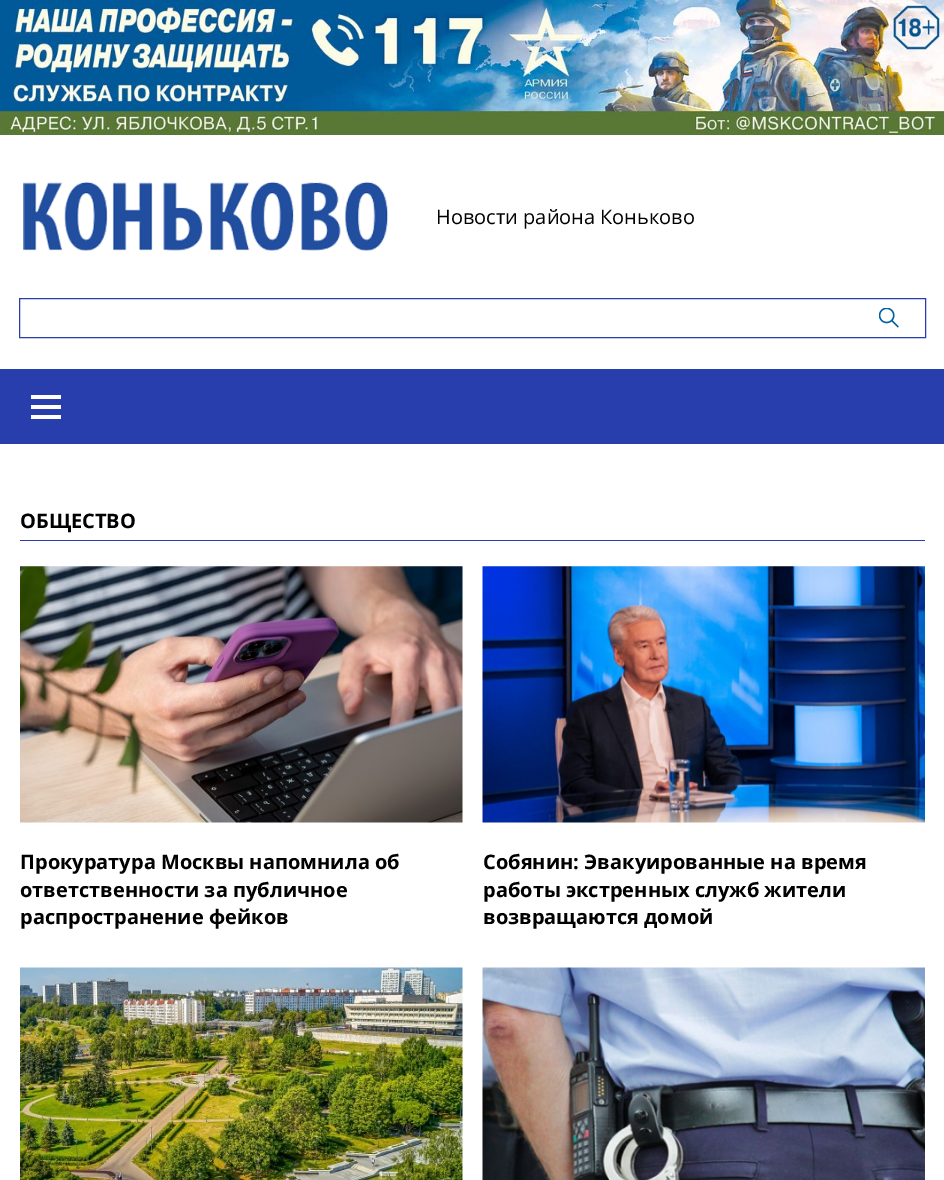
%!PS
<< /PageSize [944 1180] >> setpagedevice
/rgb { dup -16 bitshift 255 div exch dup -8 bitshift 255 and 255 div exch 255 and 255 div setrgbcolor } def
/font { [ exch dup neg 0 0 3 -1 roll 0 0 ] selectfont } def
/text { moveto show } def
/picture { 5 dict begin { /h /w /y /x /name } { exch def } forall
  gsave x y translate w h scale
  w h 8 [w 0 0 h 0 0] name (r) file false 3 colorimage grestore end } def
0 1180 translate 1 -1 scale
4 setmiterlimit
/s1 { /OpenSans-Regular 20 font 16#000000 rgb } def
/s2 { /OpenSans-Bold 20 font 16#000000 rgb } def
16#FFFFFF rgb
0 0 944 1180 rectfill
(pic1.raw) 0 0 944 135 picture
(pic2.raw) 23 182 366 69 picture
s1
(Новости района Коньково) 436 224 text
(pic3.raw) 879 308 20 20 picture
16#273EAC rgb
19.5 298.5 906 39 rectstroke
0 369 944 75 rectfill
16#FFFFFF rgb
31 395 30 4 rectfill
31 405 30 4 rectfill
31 415 30 4 rectfill
16#273EAC rgb
20 540 905 1 rectfill
s2
(ОБЩЕСТВО) 20 528 text
(pic4.raw) 20 566 443 257 picture
(Прокуратура Москвы напомнила об) 20 869 text
(ответственности за публичное) 20 897 text
(распространение фейков) 20 924 text
(pic5.raw) 482 566 443 257 picture
(Собянин: Эвакуированные на время) 483 869 text
(работы экстренных служб жители) 483 897 text
(возвращаются домой) 483 924 text
(pic6.raw) 20 967 443 213 picture
(pic7.raw) 482 967 443 213 picture
showpage
